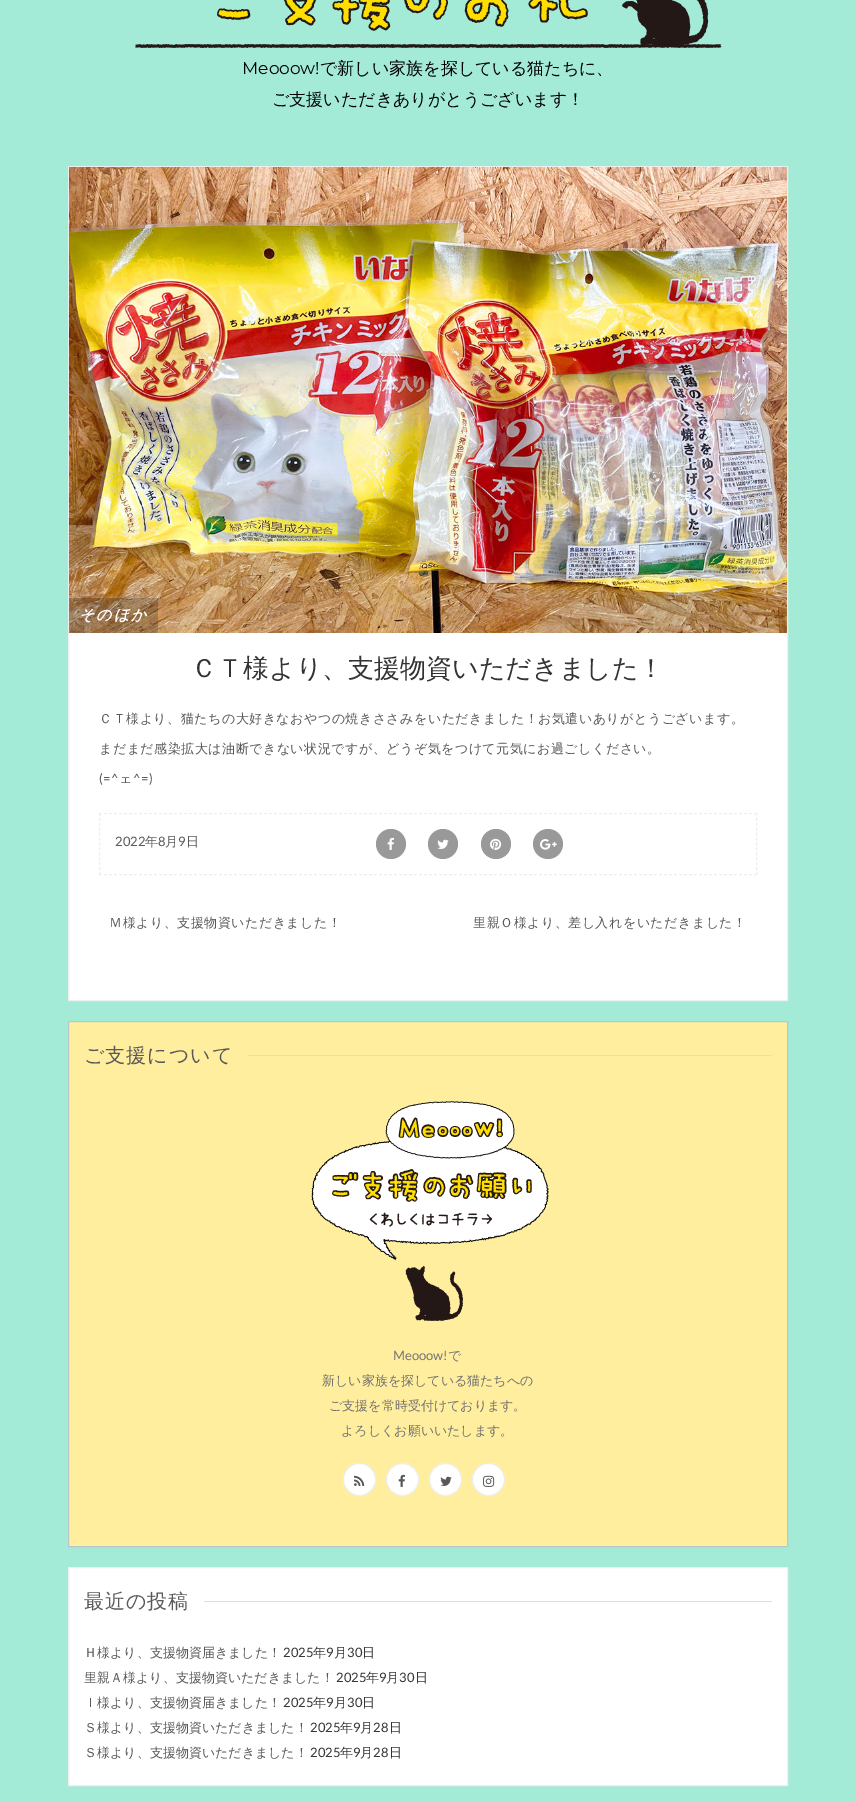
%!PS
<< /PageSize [855 1801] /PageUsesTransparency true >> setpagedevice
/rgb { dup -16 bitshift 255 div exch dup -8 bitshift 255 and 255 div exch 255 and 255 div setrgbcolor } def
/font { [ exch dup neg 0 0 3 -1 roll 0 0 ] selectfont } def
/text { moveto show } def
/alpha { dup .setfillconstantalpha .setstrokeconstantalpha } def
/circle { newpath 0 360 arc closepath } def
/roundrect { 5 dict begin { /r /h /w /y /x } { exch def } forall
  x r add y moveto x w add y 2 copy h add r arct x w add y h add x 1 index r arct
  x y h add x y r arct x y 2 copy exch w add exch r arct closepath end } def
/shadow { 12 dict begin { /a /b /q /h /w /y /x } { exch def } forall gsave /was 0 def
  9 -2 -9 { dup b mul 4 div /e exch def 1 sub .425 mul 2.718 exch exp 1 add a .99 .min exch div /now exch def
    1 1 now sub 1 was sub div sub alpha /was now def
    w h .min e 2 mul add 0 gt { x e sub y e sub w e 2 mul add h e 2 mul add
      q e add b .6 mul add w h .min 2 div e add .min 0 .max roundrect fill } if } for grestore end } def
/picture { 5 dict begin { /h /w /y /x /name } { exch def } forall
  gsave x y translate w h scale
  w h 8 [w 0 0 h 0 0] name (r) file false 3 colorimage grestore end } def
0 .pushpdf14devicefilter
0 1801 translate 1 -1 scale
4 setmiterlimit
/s1 { /Montserrat-Regular 17 font 16#000000 rgb } def
/s2 { /WenQuanYiZenHei-Medium 17 font 16#000000 rgb } def
/s3 { /WenQuanYiZenHei-Medium 26 font 16#333333 rgb } def
/s4 { /Lato-Regular 13 font 16#595757 rgb } def
/s5 { /WenQuanYiZenHei-Medium 13 font 16#595757 rgb } def
/s6 { /Lato-Regular 13 font 16#727171 rgb } def
/s7 { /WenQuanYiZenHei-Medium 13 font 16#727171 rgb } def
/s8 { /Lato-Regular 13 font 16#333333 rgb } def
/s9 { /WenQuanYiZenHei-Medium 13 font 16#333333 rgb } def
16#A3EAD7 rgb
0 0 855 1801 rectfill
(pic1.raw) 135 0 587 48 picture
s1
(Meooow!) 242 74 text
s2
(で新しい家族を探している猫たちに、) 320 74 text
(ご支援いただきありがとうございます！) 272 105 text
16#FFFFFF rgb
69 633 718 367 rectfill
16#EEEEEE rgb
68.5 166.5 719 834 rectstroke
(pic2.raw) 69 167 718 466 picture
0.2 alpha
16#000000 rgb
69 598 89 35 rectfill
/WenQuanYiZenHei-BoldItalic 15 font
1 alpha
16#FFFFFF rgb
79 620 moveto 2 0 (そのほか) ashow
s3
(ＣＴ様より、支援物資いただきました！) 191 677 text
/WenQuanYiZenHei-Medium 13 font
16#595757 rgb
99 723 moveto 0.5 0 (ＣＴ様より、猫たちの大好きなおやつの焼きささみをいただきました！お気遣いありがとうございます。) ashow
99 753 moveto 0.5 0 (まだまだ感染拡大は油断できない状況ですが、どうぞ気をつけて元気にお過ごしください。) ashow
/Lato-Regular 13 font
99 783 moveto 0.5 0 (\(=^) ashow
/WenQuanYiZenHei-Medium 13 font
119 783 moveto 0.5 0 (ェ) ashow
/Lato-Regular 13 font
133 783 moveto 0.5 0 (^=\)) ashow
16#EEEEEE rgb
[3 2] 0 setdash
99 813.5 moveto 757 813.5 lineto stroke
[3 1.92] 0 setdash
756.5 813 moveto 756.5 875 lineto stroke
[3 2] 0 setdash
99 874.5 moveto 757 874.5 lineto stroke
[3 1.92] 0 setdash
99.5 813 moveto 99.5 875 lineto stroke
s4
(2022) 115 846 text
s5
(年) 145 846 text
s4
(8) 158 846 text
s5
(月) 165 846 text
s4
(9) 178 846 text
s5
(日) 186 846 text
16#999999 rgb
391 844 15 circle fill
(pic3.raw) 387 837 7 13 picture
443 844 15 circle fill
(pic4.raw) 437 839 12 10 picture
496 844 15 circle fill
(pic5.raw) 490 838 12 12 picture
548 844 15 circle fill
(pic6.raw) 540 839 17 11 picture
16#595757 rgb
109 927 moveto 0.5 0 (Ｍ様より、支援物資いただきました！) ashow
473 927 moveto 0.5 0 (里親Ｏ様より、差し入れをいただきました！) ashow
16#BEBEBE rgb
73 1031 710 516 0 1.5 0.3 shadow
16#FFEE9E rgb
68.5 1021.5 moveto 787.5 1021.5 lineto 787.5 1546.5 lineto 68.5 1546.5 lineto closepath gsave fill grestore
16#B8C7C7 rgb
[] 0 setdash
stroke
/WenQuanYiZenHei-Medium 20 font
16#595757 rgb
84 1062 moveto 1 0 (ご支援について) ashow
16#DDDDDD rgb
248 1055 524 1 rectfill
(pic7.raw) 311 1101 238 220 picture
s6
(Meooow!) 393 1360 text
s7
(で) 448 1360 text
(新しい家族を探している猫たちへの) 322 1385 text
(ご支援を常時受付けております。) 329 1410 text
(よろしくお願いいたします。) 341 1435 text
16#FFFFFF rgb
359.5 1479.5 16 circle gsave fill grestore
16#EEEEEE rgb
stroke
(pic8.raw) 354 1475 11 11 picture
16#FFFFFF rgb
402.5 1479.5 16 circle gsave fill grestore
16#EEEEEE rgb
stroke
(pic9.raw) 398 1474 7 13 picture
16#FFFFFF rgb
445.5 1479.5 16 circle gsave fill grestore
16#EEEEEE rgb
stroke
(pic10.raw) 440 1476 12 10 picture
16#FFFFFF rgb
488.5 1479.5 16 circle gsave fill grestore
16#EEEEEE rgb
stroke
(pic11.raw) 483 1475 12 12 picture
16#BEBEBE rgb
73 1577 710 209 0 1.5 0.3 shadow
16#FFFFFF rgb
68.5 1567.5 moveto 787.5 1567.5 lineto 787.5 1785.5 lineto 68.5 1785.5 lineto closepath gsave fill grestore
16#EEEEEE rgb
stroke
/WenQuanYiZenHei-Medium 20 font
16#595757 rgb
84 1608 moveto 1 0 (最近の投稿) ashow
16#DDDDDD rgb
204 1601 568 1 rectfill
s5
(Ｈ様より、支援物資届きました！) 84 1657 text
s8
(2025) 283 1657 text
s9
(年) 313 1657 text
s8
(9) 326 1657 text
s9
(月) 334 1657 text
s8
(30) 347 1657 text
s9
(日) 362 1657 text
s5
(里親Ａ様より、支援物資いただきました！) 84 1682 text
s8
(2025) 336 1682 text
s9
(年) 366 1682 text
s8
(9) 379 1682 text
s9
(月) 386 1682 text
s8
(30) 399 1682 text
s9
(日) 415 1682 text
s5
(Ｉ様より、支援物資届きました！) 84 1707 text
s8
(2025) 283 1707 text
s9
(年) 313 1707 text
s8
(9) 326 1707 text
s9
(月) 334 1707 text
s8
(30) 347 1707 text
s9
(日) 362 1707 text
s5
(Ｓ様より、支援物資いただきました！) 84 1732 text
s8
(2025) 310 1732 text
s9
(年) 340 1732 text
s8
(9) 353 1732 text
s9
(月) 360 1732 text
s8
(28) 373 1732 text
s9
(日) 389 1732 text
s5
(Ｓ様より、支援物資いただきました！) 84 1757 text
s8
(2025) 310 1757 text
s9
(年) 340 1757 text
s8
(9) 353 1757 text
s9
(月) 360 1757 text
s8
(28) 373 1757 text
s9
(日) 389 1757 text
.poppdf14devicefilter showpage
